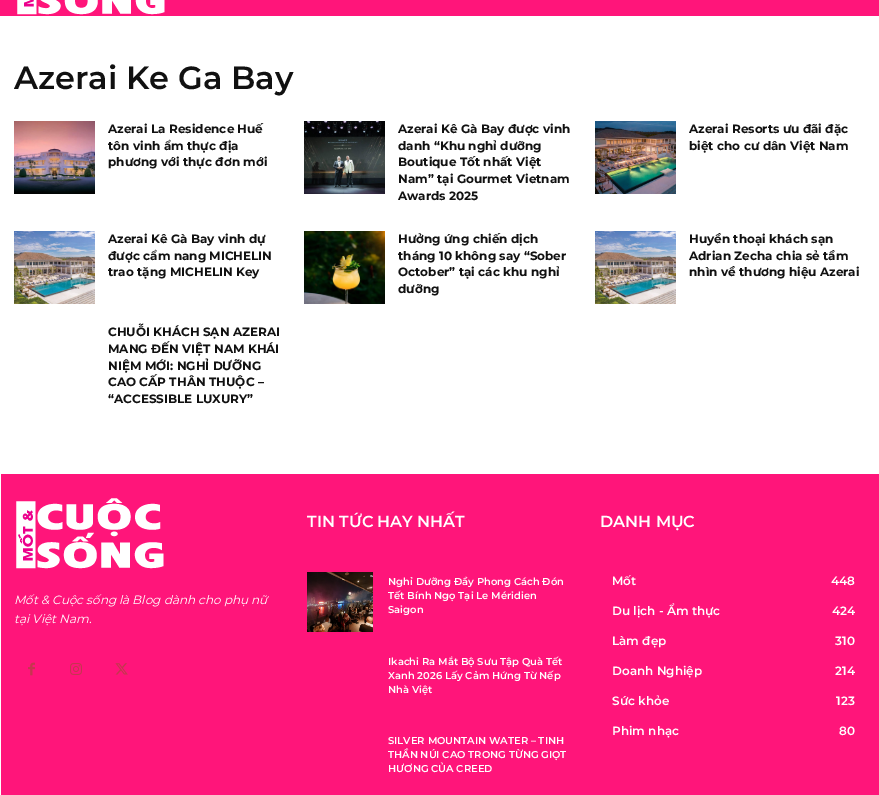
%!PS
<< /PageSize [879 795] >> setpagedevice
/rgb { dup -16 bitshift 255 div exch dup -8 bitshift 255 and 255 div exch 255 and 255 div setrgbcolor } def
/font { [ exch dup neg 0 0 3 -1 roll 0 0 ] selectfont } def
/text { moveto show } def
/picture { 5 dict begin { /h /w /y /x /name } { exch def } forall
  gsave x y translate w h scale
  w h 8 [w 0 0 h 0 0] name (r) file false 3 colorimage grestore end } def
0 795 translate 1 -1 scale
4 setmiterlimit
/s1 { /Montserrat-SemiBold 32 font 16#111111 rgb } def
/s2 { /Montserrat-Bold 12 font 16#111111 rgb } def
/s3 { /Montserrat-Italic 12 font 16#FFFFFF rgb } def
/s4 { /Montserrat-SemiBold 16 font 16#FFFFFF rgb } def
/s5 { /Montserrat-SemiBold 10 font 16#FFFFFF rgb } def
/s6 { /Montserrat-SemiBold 12 font 16#FFFFFF rgb } def
16#FFFFFF rgb
0 0 879 795 rectfill
16#FF157A rgb
0 0 879 16 rectfill
(pic1.raw) 17 0 148 15 picture
s1
(Azerai Ke Ga Bay) 14 89 text
(pic2.raw) 14 121 81 73 picture
s2
(Azerai La Residence Huế) 108 133 text
(tôn vinh ẩm thực địa) 108 150 text
(phương với thực đơn mới) 108 166 text
(pic3.raw) 304 121 81 73 picture
(Azerai Kê Gà Bay được vinh) 398 133 text
(danh “Khu nghỉ dưỡng) 398 150 text
(Boutique Tốt nhất Việt) 398 166 text
(Nam” tại Gourmet Vietnam) 398 183 text
(Awards 2025) 398 200 text
(pic4.raw) 595 121 81 73 picture
(Azerai Resorts ưu đãi đặc) 689 133 text
(biệt cho cư dân Việt Nam) 689 150 text
(pic5.raw) 14 231 81 73 picture
(Azerai Kê Gà Bay vinh dự) 108 243 text
(được cẩm nang MICHELIN) 108 260 text
(trao tặng MICHELIN Key) 108 276 text
(pic6.raw) 304 231 81 73 picture
(Hưởng ứng chiến dịch) 398 243 text
(tháng 10 không say “Sober) 398 260 text
(October” tại các khu nghỉ) 398 276 text
(dưỡng) 398 293 text
(pic7.raw) 595 231 81 73 picture
(Huyền thoại khách sạn) 689 243 text
(Adrian Zecha chia sẻ tầm) 689 260 text
(nhìn về thương hiệu Azerai) 689 276 text
(CHUỖI KHÁCH SẠN AZERAI) 108 336 text
(MANG ĐẾN VIỆT NAM KHÁI) 108 353 text
(NIỆM MỚI: NGHỈ DƯỠNG) 108 370 text
(CAO CẤP THÂN THUỘC –) 108 386 text
(“ACCESSIBLE LUXURY”) 108 403 text
16#FF157A rgb
1 474 878 321 rectfill
(pic8.raw) 16 498 148 71 picture
s3
(Mốt & Cuộc sống là Blog dành cho phụ nữ) 14 604 text
(tại Việt Nam.) 14 623 text
(pic9.raw) 28 662 7 14 picture
(pic10.raw) 70 663 12 12 picture
(pic11.raw) 115 663 13 12 picture
s4
(TIN TỨC HAY NHẤT) 307 527 text
(pic12.raw) 307 572 66 60 picture
s5
(Nghỉ Dưỡng Đầy Phong Cách Đón) 388 585 text
(Tết Bính Ngọ Tại Le Méridien) 388 599 text
(Saigon) 388 613 text
(Ikachi Ra Mắt Bộ Sưu Tập Quà Tết) 388 665 text
(Xanh 2026 Lấy Cảm Hứng Từ Nếp) 388 679 text
(Nhà Việt) 388 693 text
(SILVER MOUNTAIN WATER – TINH) 388 744 text
(THẦN NÚI CAO TRONG TỪNG GIỌT) 388 758 text
(HƯƠNG CỦA CREED) 388 772 text
s4
(DANH MỤC) 600 527 text
s6
(Mốt) 612 585 text
(448) 831 585 text
(Du lịch - Ẩm thực) 612 615 text
(424) 832 615 text
(Làm đẹp) 612 645 text
(310) 835 645 text
(Doanh Nghiệp) 612 675 text
(214) 835 675 text
(Sức khỏe) 612 705 text
(123) 836 705 text
(Phim nhạc) 612 735 text
(80) 839 735 text
showpage
